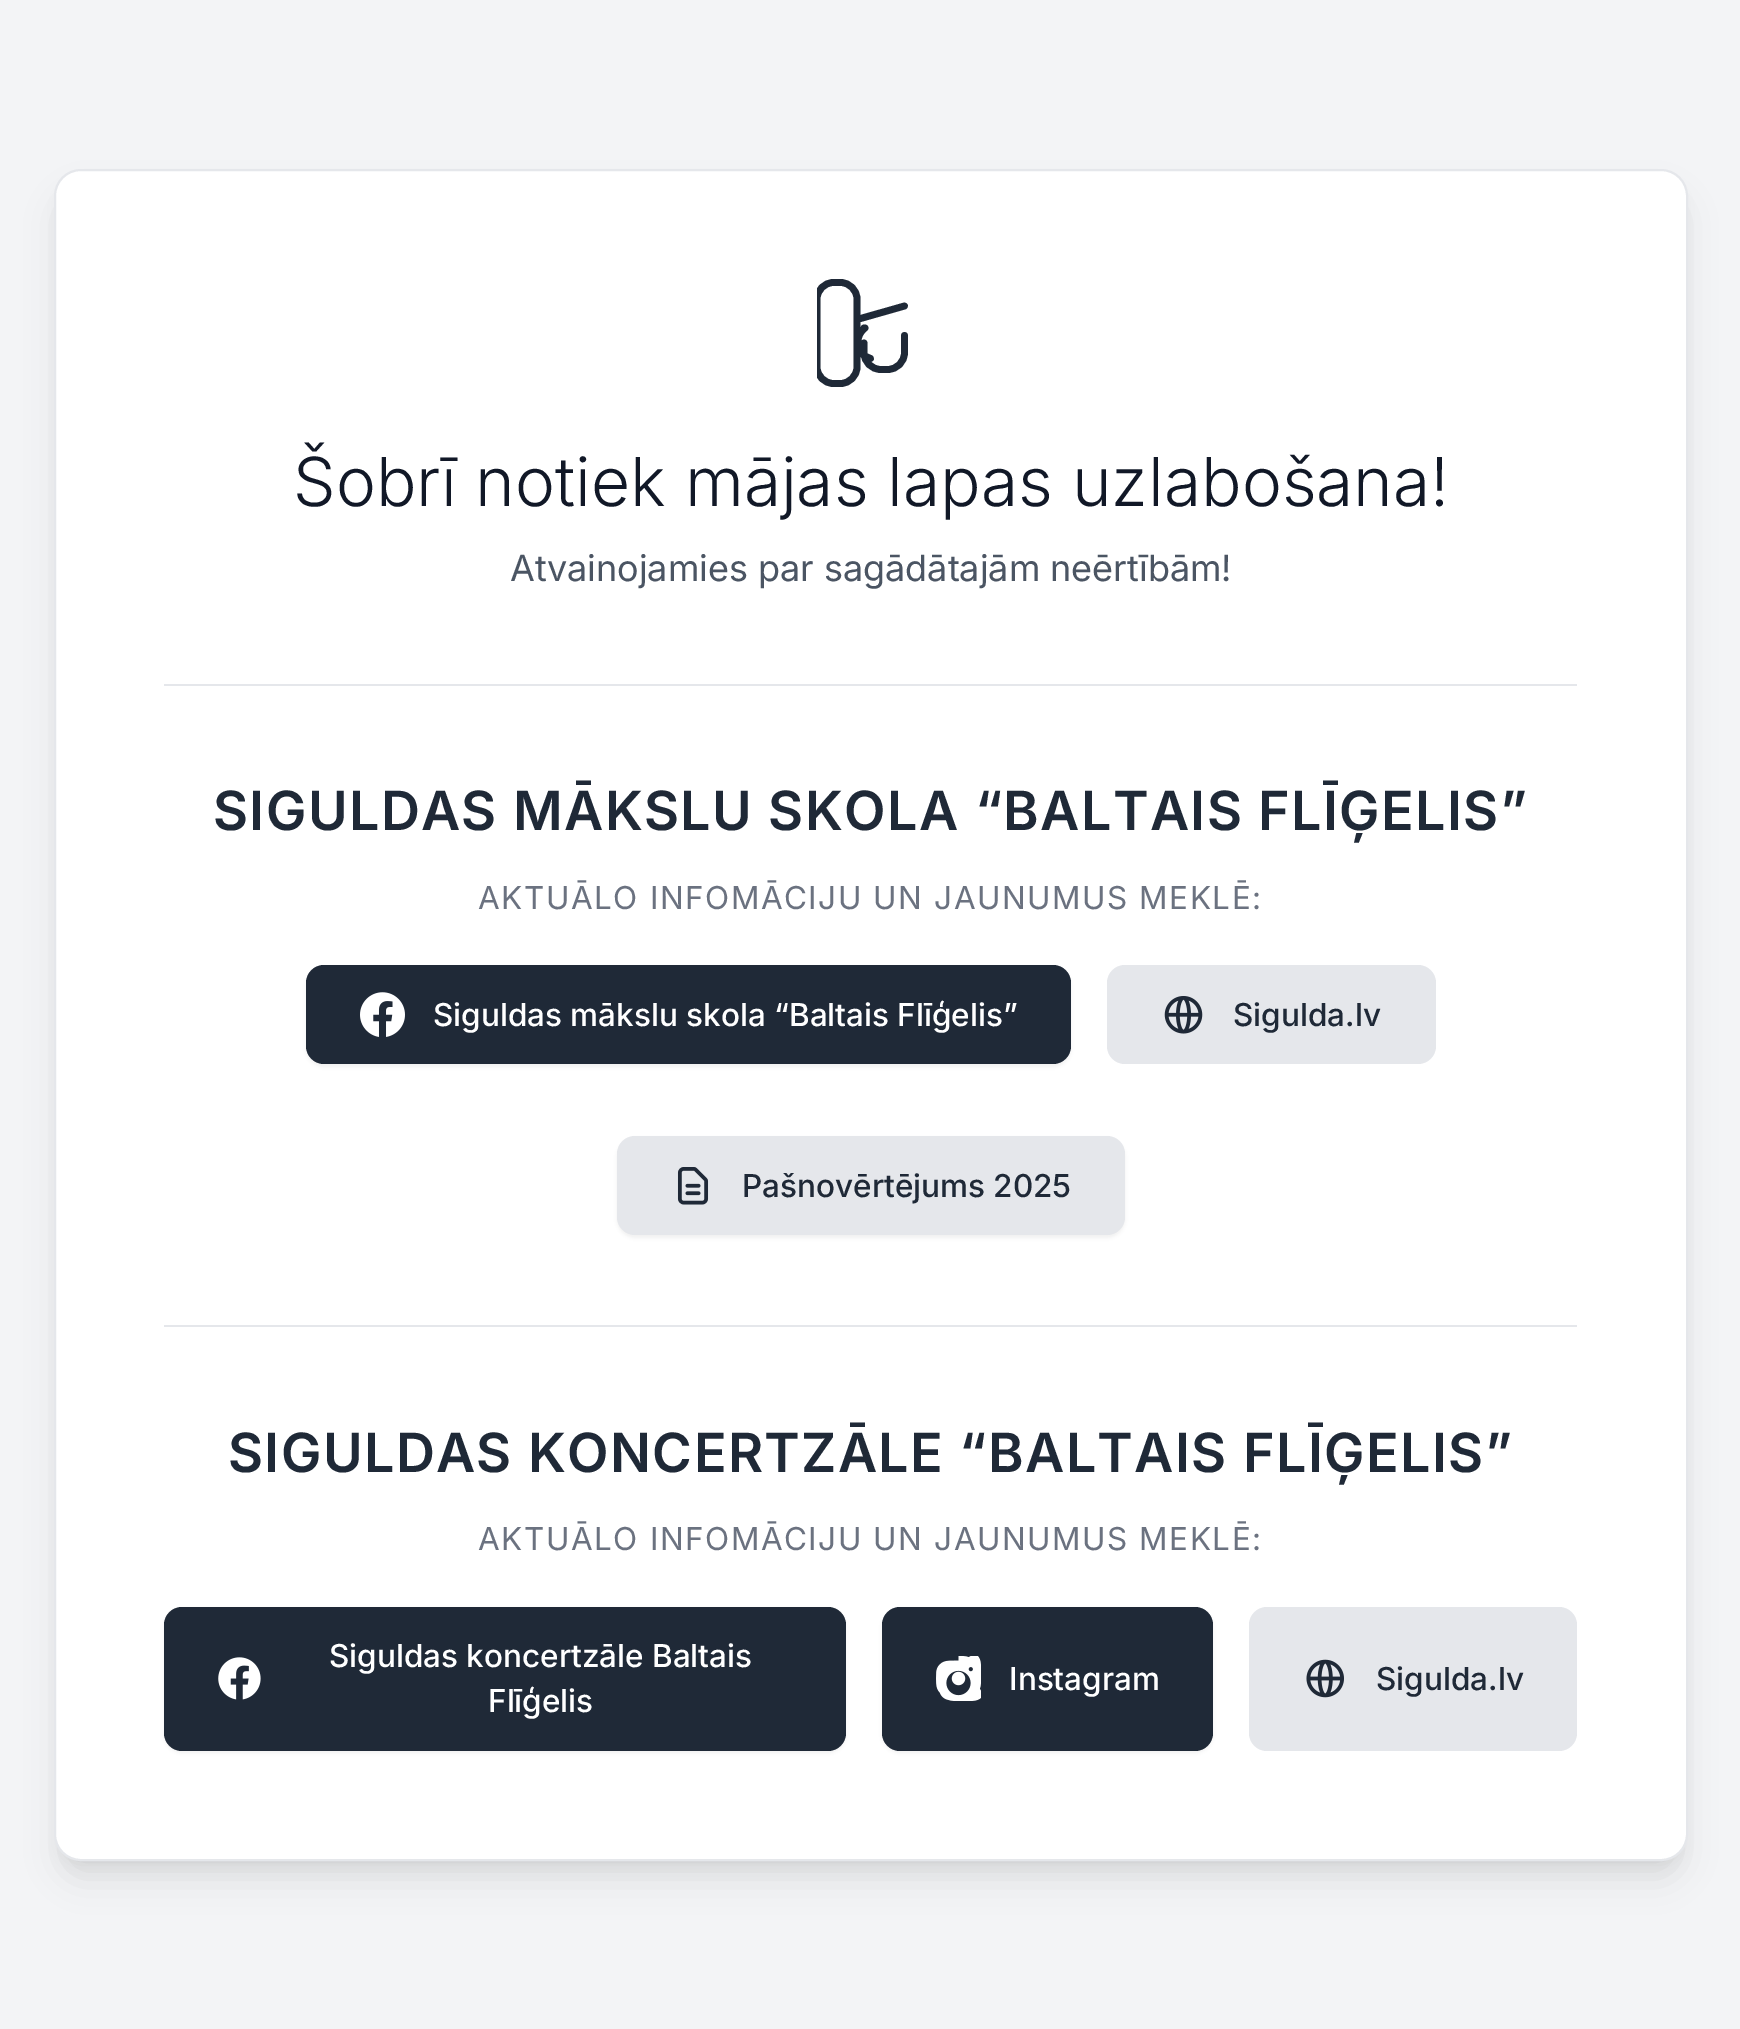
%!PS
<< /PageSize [1740 2029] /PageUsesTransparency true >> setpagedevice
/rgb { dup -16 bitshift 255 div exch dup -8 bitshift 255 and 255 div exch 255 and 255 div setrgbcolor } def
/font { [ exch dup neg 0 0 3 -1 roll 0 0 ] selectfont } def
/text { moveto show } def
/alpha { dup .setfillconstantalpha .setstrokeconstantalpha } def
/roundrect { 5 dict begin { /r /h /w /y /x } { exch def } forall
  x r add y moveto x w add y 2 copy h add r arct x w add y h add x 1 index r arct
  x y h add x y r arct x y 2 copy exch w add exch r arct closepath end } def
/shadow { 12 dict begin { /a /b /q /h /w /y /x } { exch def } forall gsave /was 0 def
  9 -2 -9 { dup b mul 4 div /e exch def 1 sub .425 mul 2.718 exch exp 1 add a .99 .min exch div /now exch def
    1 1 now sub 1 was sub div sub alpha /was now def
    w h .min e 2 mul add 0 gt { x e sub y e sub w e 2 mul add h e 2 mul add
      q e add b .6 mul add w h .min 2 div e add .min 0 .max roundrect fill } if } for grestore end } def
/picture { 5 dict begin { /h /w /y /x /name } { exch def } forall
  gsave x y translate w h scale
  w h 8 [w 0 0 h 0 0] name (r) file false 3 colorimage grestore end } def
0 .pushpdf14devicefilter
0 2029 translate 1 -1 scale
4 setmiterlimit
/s1 { /Inter-Light 67.5 font 16#111827 rgb } def
/s2 { /Inter-Regular 36 font 16#4B5563 rgb } def
/s3 { /Inter-Medium 31.5 font 16#FFFFFF rgb } def
/s4 { /Inter-Medium 31.5 font 16#1F2937 rgb } def
16#F3F4F6 rgb
0 0 1740 2029 rectfill
16#000000 rgb
63 187 1616 1674 18 7 0.1 shadow
61 198 1620 1679 20 17 0.1 shadow
16#FFFFFF rgb
55 170 1632 1690 26 roundrect gsave fill grestore
16#E5E7EB rgb
2 setlinewidth
stroke
gsave
817 279 108 108 rectclip
16#1F2937 rgb
6.8 setlinewidth
1 setlinecap
1 setlinejoin
857 319.5 moveto 904.5 306 lineto 904.5 335.5 moveto 904.5 352.5 lineto 904.5 362 897 369.5 887.5 369.5 curveto 881 369.5 lineto 871.5 369.5 864 362 864 352.5 curveto 864 343 lineto 864 328 moveto 865 328 lineto 856 334.5 855.5 348 863.5 355 curveto 865.5 356.5 868 357.5 870.5 358.5 curveto 857 319.5 moveto 857 299 lineto 857 290 849.5 282.5 840.5 282.5 curveto 833.5 282.5 lineto 824.5 282.5 817 290 817 299 curveto 817 367 lineto 817 376 824.5 383.5 833.5 383.5 curveto 840.5 383.5 lineto 849.5 383.5 857 376 857 367 curveto closepath stroke
grestore
s1
(Šobrī notiek mājas lapas uzlabošana!) 293 506 text
s2
(Atvainojamies par sagādātajām neērtībām!) 510 581 text
16#E5E7EB rgb
164 684 1413 2 rectfill
/Inter-SemiBold 54 font
16#1F2937 rgb
213 830 moveto 1.35 0 (SIGULDAS MĀKSLU SKOLA “BALTAIS FLĪĢELIS”) ashow
/Inter-Regular 31.5 font
16#6B7280 rgb
478 909 moveto 1.55 0 (AKTUĀLO INFOMĀCIJU UN JAUNUMUS MEKLĒ:) ashow
16#000000 rgb
306 968 765 99 18 2 0.05 shadow
16#1F2937 rgb
306 965 765 99 18 roundrect fill
(pic1.raw) 360 992 45 45 picture
s3
(Siguldas mākslu skola “Baltais Flīģelis”) 433 1026 text
16#E5E7EB rgb
1107 965 329 99 18 roundrect fill
(pic2.raw) 1164 996 39 38 picture
s4
(Sigulda.lv) 1233 1026 text
16#000000 rgb
617 1139 508 99 18 2 0.05 shadow
16#E5E7EB rgb
617 1136 508 99 18 roundrect fill
(pic3.raw) 677 1167 32 38 picture
s4
(Pašnovērtējums 2025) 742 1197 text
16#E5E7EB rgb
164 1325 1413 2 rectfill
/Inter-SemiBold 54 font
16#1F2937 rgb
228 1472 moveto 1.35 0 (SIGULDAS KONCERTZĀLE “BALTAIS FLĪĢELIS”) ashow
/Inter-Regular 31.5 font
16#6B7280 rgb
478 1550 moveto 1.55 0 (AKTUĀLO INFOMĀCIJU UN JAUNUMUS MEKLĒ:) ashow
16#000000 rgb
164 1609 682 144 18 2 0.05 shadow
16#1F2937 rgb
164 1607 682 144 18 roundrect fill
(pic4.raw) 218 1657 43 43 picture
s3
(Siguldas koncertzāle Baltais) 329 1667 text
(Flīģelis) 488 1712 text
16#000000 rgb
882 1609 331 144 18 2 0.05 shadow
16#1F2937 rgb
882 1607 331 144 18 roundrect fill
(pic5.raw) 936 1656 45 45 picture
s3
(Instagram) 1009 1690 text
16#E5E7EB rgb
1249 1607 328 144 18 roundrect fill
(pic6.raw) 1306 1659 38 39 picture
s4
(Sigulda.lv) 1376 1690 text
.poppdf14devicefilter showpage
